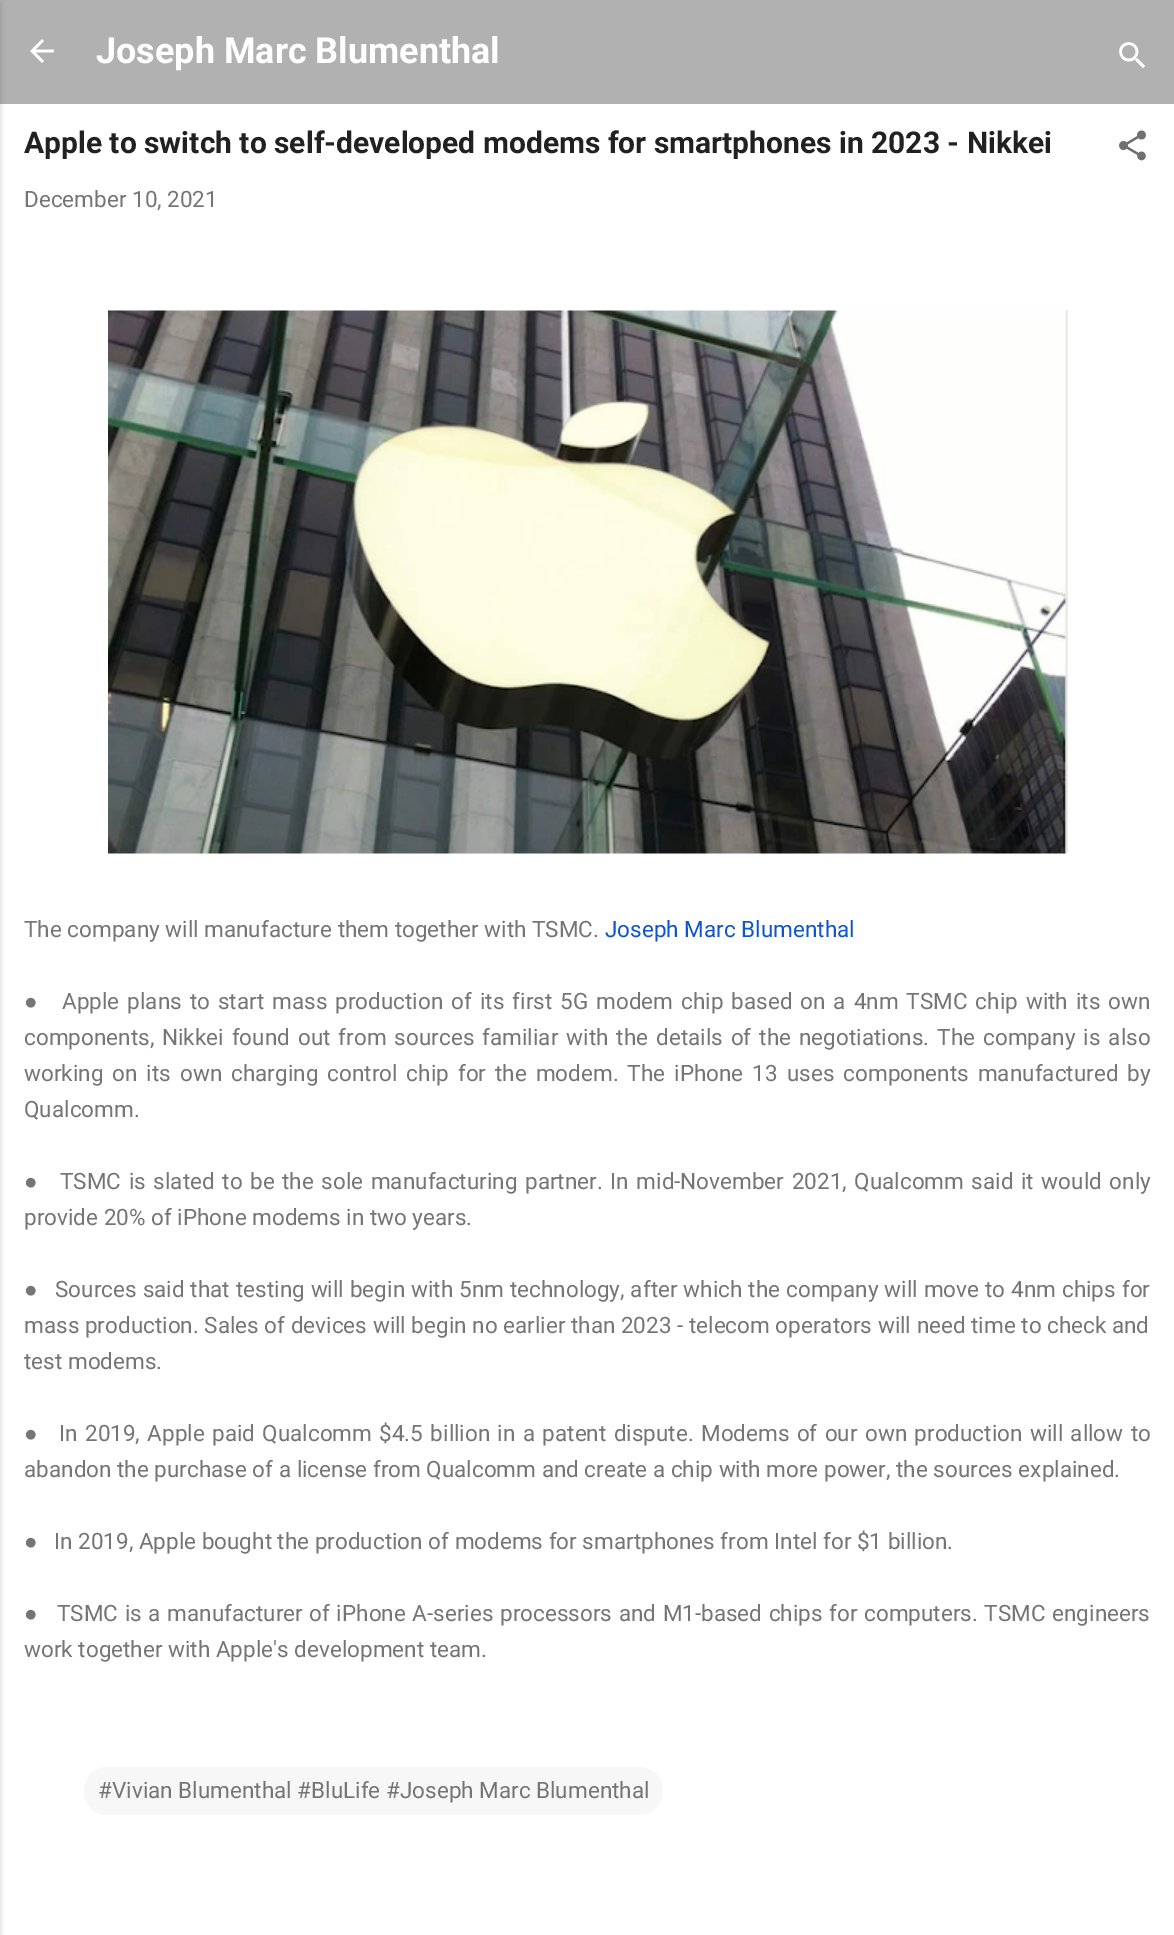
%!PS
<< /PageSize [1174 1935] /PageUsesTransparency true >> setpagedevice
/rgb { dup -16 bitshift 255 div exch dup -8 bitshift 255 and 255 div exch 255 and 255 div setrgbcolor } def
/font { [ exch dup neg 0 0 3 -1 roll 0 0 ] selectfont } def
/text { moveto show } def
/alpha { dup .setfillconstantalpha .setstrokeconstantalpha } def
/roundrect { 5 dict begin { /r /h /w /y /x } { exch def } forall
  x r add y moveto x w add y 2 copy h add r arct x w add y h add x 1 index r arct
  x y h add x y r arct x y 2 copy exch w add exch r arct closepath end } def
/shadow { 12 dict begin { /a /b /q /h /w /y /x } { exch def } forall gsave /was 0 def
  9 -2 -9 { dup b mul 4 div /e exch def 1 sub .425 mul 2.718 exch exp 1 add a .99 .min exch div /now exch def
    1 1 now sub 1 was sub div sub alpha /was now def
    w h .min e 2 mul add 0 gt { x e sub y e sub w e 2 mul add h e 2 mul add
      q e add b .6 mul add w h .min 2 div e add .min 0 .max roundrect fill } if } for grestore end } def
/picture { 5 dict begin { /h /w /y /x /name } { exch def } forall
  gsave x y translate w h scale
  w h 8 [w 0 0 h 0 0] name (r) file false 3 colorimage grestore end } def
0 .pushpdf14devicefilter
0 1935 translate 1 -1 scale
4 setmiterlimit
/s1 { /Roboto-Bold 36 font 16#FFFFFF rgb } def
/s2 { /Roboto-Bold 30 font 16#212121 rgb } def
/s3 { /Roboto-Regular 22.5 font 16#757575 rgb } def
/s4 { /Roboto-Regular 22.5 font 16#1155CC rgb } def
/s5 { /LiberationSans-Regular 22.5 font 16#757575 rgb } def
16#B1B1B1 rgb
0 0 1174 1935 rectfill
16#FFFFFF rgb
0 104 1174 1831 rectfill
16#000000 rgb
-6 2 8 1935 0 2 0.1 shadow
(pic1.raw) 30 39 24 24 picture
s1
(Joseph Marc Blumenthal) 96 63 text
(pic2.raw) 1119 42 26 26 picture
s2
(Apple to switch to self-developed modems for smartphones in 2023 - Nikkei) 24 153 text
(pic3.raw) 1119 130 27 31 picture
s3
(December 10, 2021) 24 207 text
(pic4.raw) 108 310 960 544 picture
(The company will manufacture them together with TSMC.) 24 937 text
s4
(Joseph Marc Blumenthal) 605 937 text
s5
(●) 24 1009 text
/Roboto-Regular 22.5 font
62 1009 moveto 2.4 0 32 (Apple plans to start mass production of its first 5G modem chip based on a 4nm TSMC chip with its own) widthshow
24 1045 moveto 2.4 0 32 (components, Nikkei found out from sources familiar with the details of the negotiations. The company is also) widthshow
24 1081 moveto 3.4 0 32 (working on its own charging control chip for the modem. The iPhone 13 uses components manufactured by) widthshow
(Qualcomm.) 24 1117 text
s5
(●) 24 1189 text
/Roboto-Regular 22.5 font
60 1189 moveto 2 0 32 (TSMC is slated to be the sole manufacturing partner. In mid-November 2021, Qualcomm said it would only) widthshow
(provide 20% of iPhone modems in two years.) 24 1225 text
s5
(●) 24 1297 text
/Roboto-Regular 22.5 font
55 1297 moveto 0.4 0 32 (Sources said that testing will begin with 5nm technology, after which the company will move to 4nm chips for) widthshow
(mass production. Sales of devices will begin no earlier than 2023 - telecom operators will need time to check and) 24 1333 text
(test modems.) 24 1369 text
s5
(●) 24 1441 text
/Roboto-Regular 22.5 font
59 1441 moveto 1.75 0 32 (In 2019, Apple paid Qualcomm $4.5 billion in a patent dispute. Modems of our own production will allow to) widthshow
(abandon the purchase of a license from Qualcomm and create a chip with more power, the sources explained.) 24 1477 text
s5
(●) 24 1549 text
s3
(In 2019, Apple bought the production of modems for smartphones from Intel for $1 billion.) 54 1549 text
s5
(●) 24 1621 text
/Roboto-Regular 22.5 font
57 1621 moveto 1 0 32 (TSMC is a manufacturer of iPhone A-series processors and M1-based chips for computers. TSMC engineers) widthshow
(work together with Apple's development team.) 24 1657 text
16#F7F7F7 rgb
84 1767 579 48 23 roundrect fill
s3
(#Vivian Blumenthal #BluLife #Joseph Marc Blumenthal) 98 1798 text
.poppdf14devicefilter showpage
